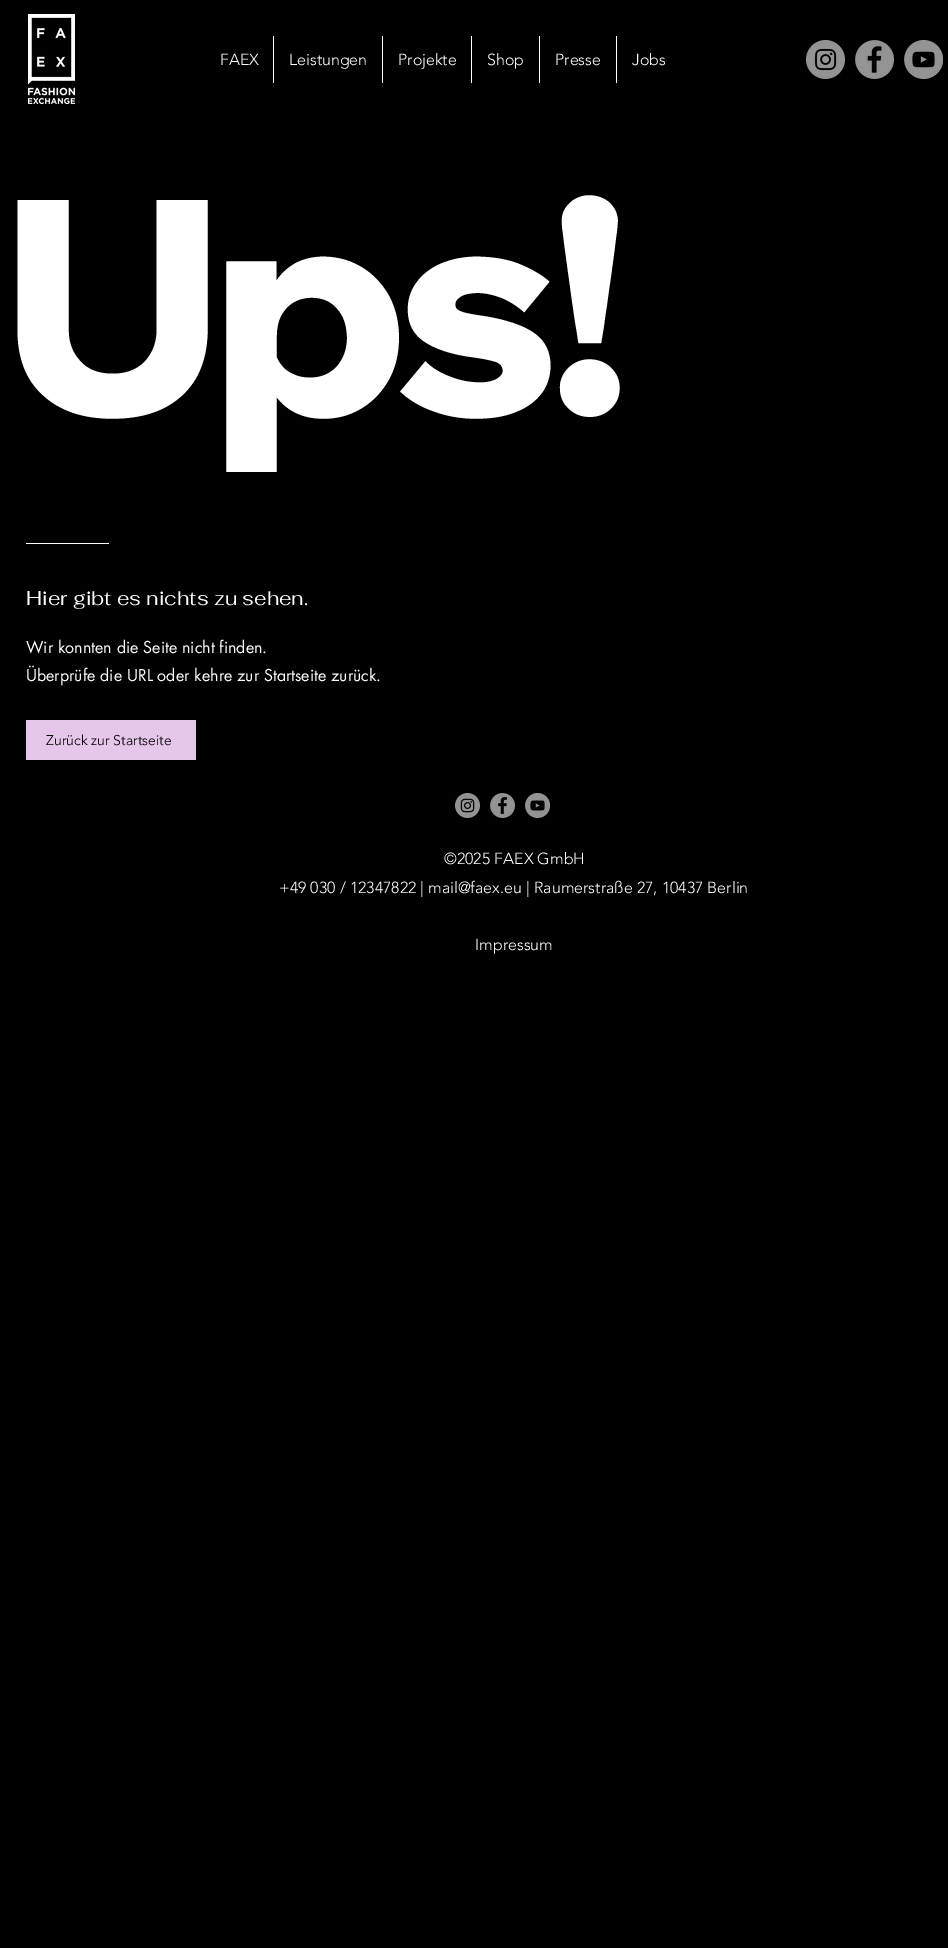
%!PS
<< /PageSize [948 1948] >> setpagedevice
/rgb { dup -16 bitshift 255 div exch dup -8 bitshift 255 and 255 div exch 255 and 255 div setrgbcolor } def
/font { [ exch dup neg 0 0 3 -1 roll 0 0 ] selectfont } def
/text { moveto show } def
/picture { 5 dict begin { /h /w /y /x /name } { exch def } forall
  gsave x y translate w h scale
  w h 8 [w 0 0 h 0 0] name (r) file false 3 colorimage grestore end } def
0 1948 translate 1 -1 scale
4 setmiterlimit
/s1 { /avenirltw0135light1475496-Light 16 font 16#FFFFFF rgb } def
/s2 { /Fahkwang-Regular 20 font 16#FFFFFF rgb } def
/s3 { /futura-Regular 16 font 16#FFFFFF rgb } def
/s4 { /avenirltw0135light1475496-Light 14 font 16#000000 rgb } def
16#000000 rgb
0 0 948 1948 rectfill
(pic1.raw) 28 14 47 90 picture
s1
(FAEX) 220 65 text
273 36 1 47 rectfill
(Leistungen) 289 65 text
382 36 1 47 rectfill
(Projekte) 398 65 text
471 36 1 47 rectfill
(Shop) 487 65 text
539 36 1 47 rectfill
(Presse) 555 65 text
616 36 1 47 rectfill
(Jobs) 632 65 text
(pic2.raw) 806 40 39 39 picture
(pic3.raw) 855 40 39 39 picture
(pic4.raw) 904 40 39 39 picture
/WixMadeforDisplay-ExtraBold 300 font
0 414 moveto -15 0 (Ups!) ashow
26 543 83 1 rectfill
s2
(Hier gibt es nichts zu sehen.) 26 605 text
s3
(Wir konnten die Seite nicht finden.) 26 653 text
(Überprüfe die URL oder kehre zur Startseite zurück.) 26 681 text
16#E6C7EB rgb
26 720 170 40 rectfill
s4
(Zurück zur Startseite) 46 745 text
(pic5.raw) 455 793 25 25 picture
(pic6.raw) 490 793 25 25 picture
(pic7.raw) 525 793 25 25 picture
s1
(©2025 FAEX GmbH) 444 864 text
(+49 030 / 12347822 | mail@faex.eu | Raumerstraße 27, 10437 Berlin) 279 893 text
(Impressum) 475 950 text
showpage
